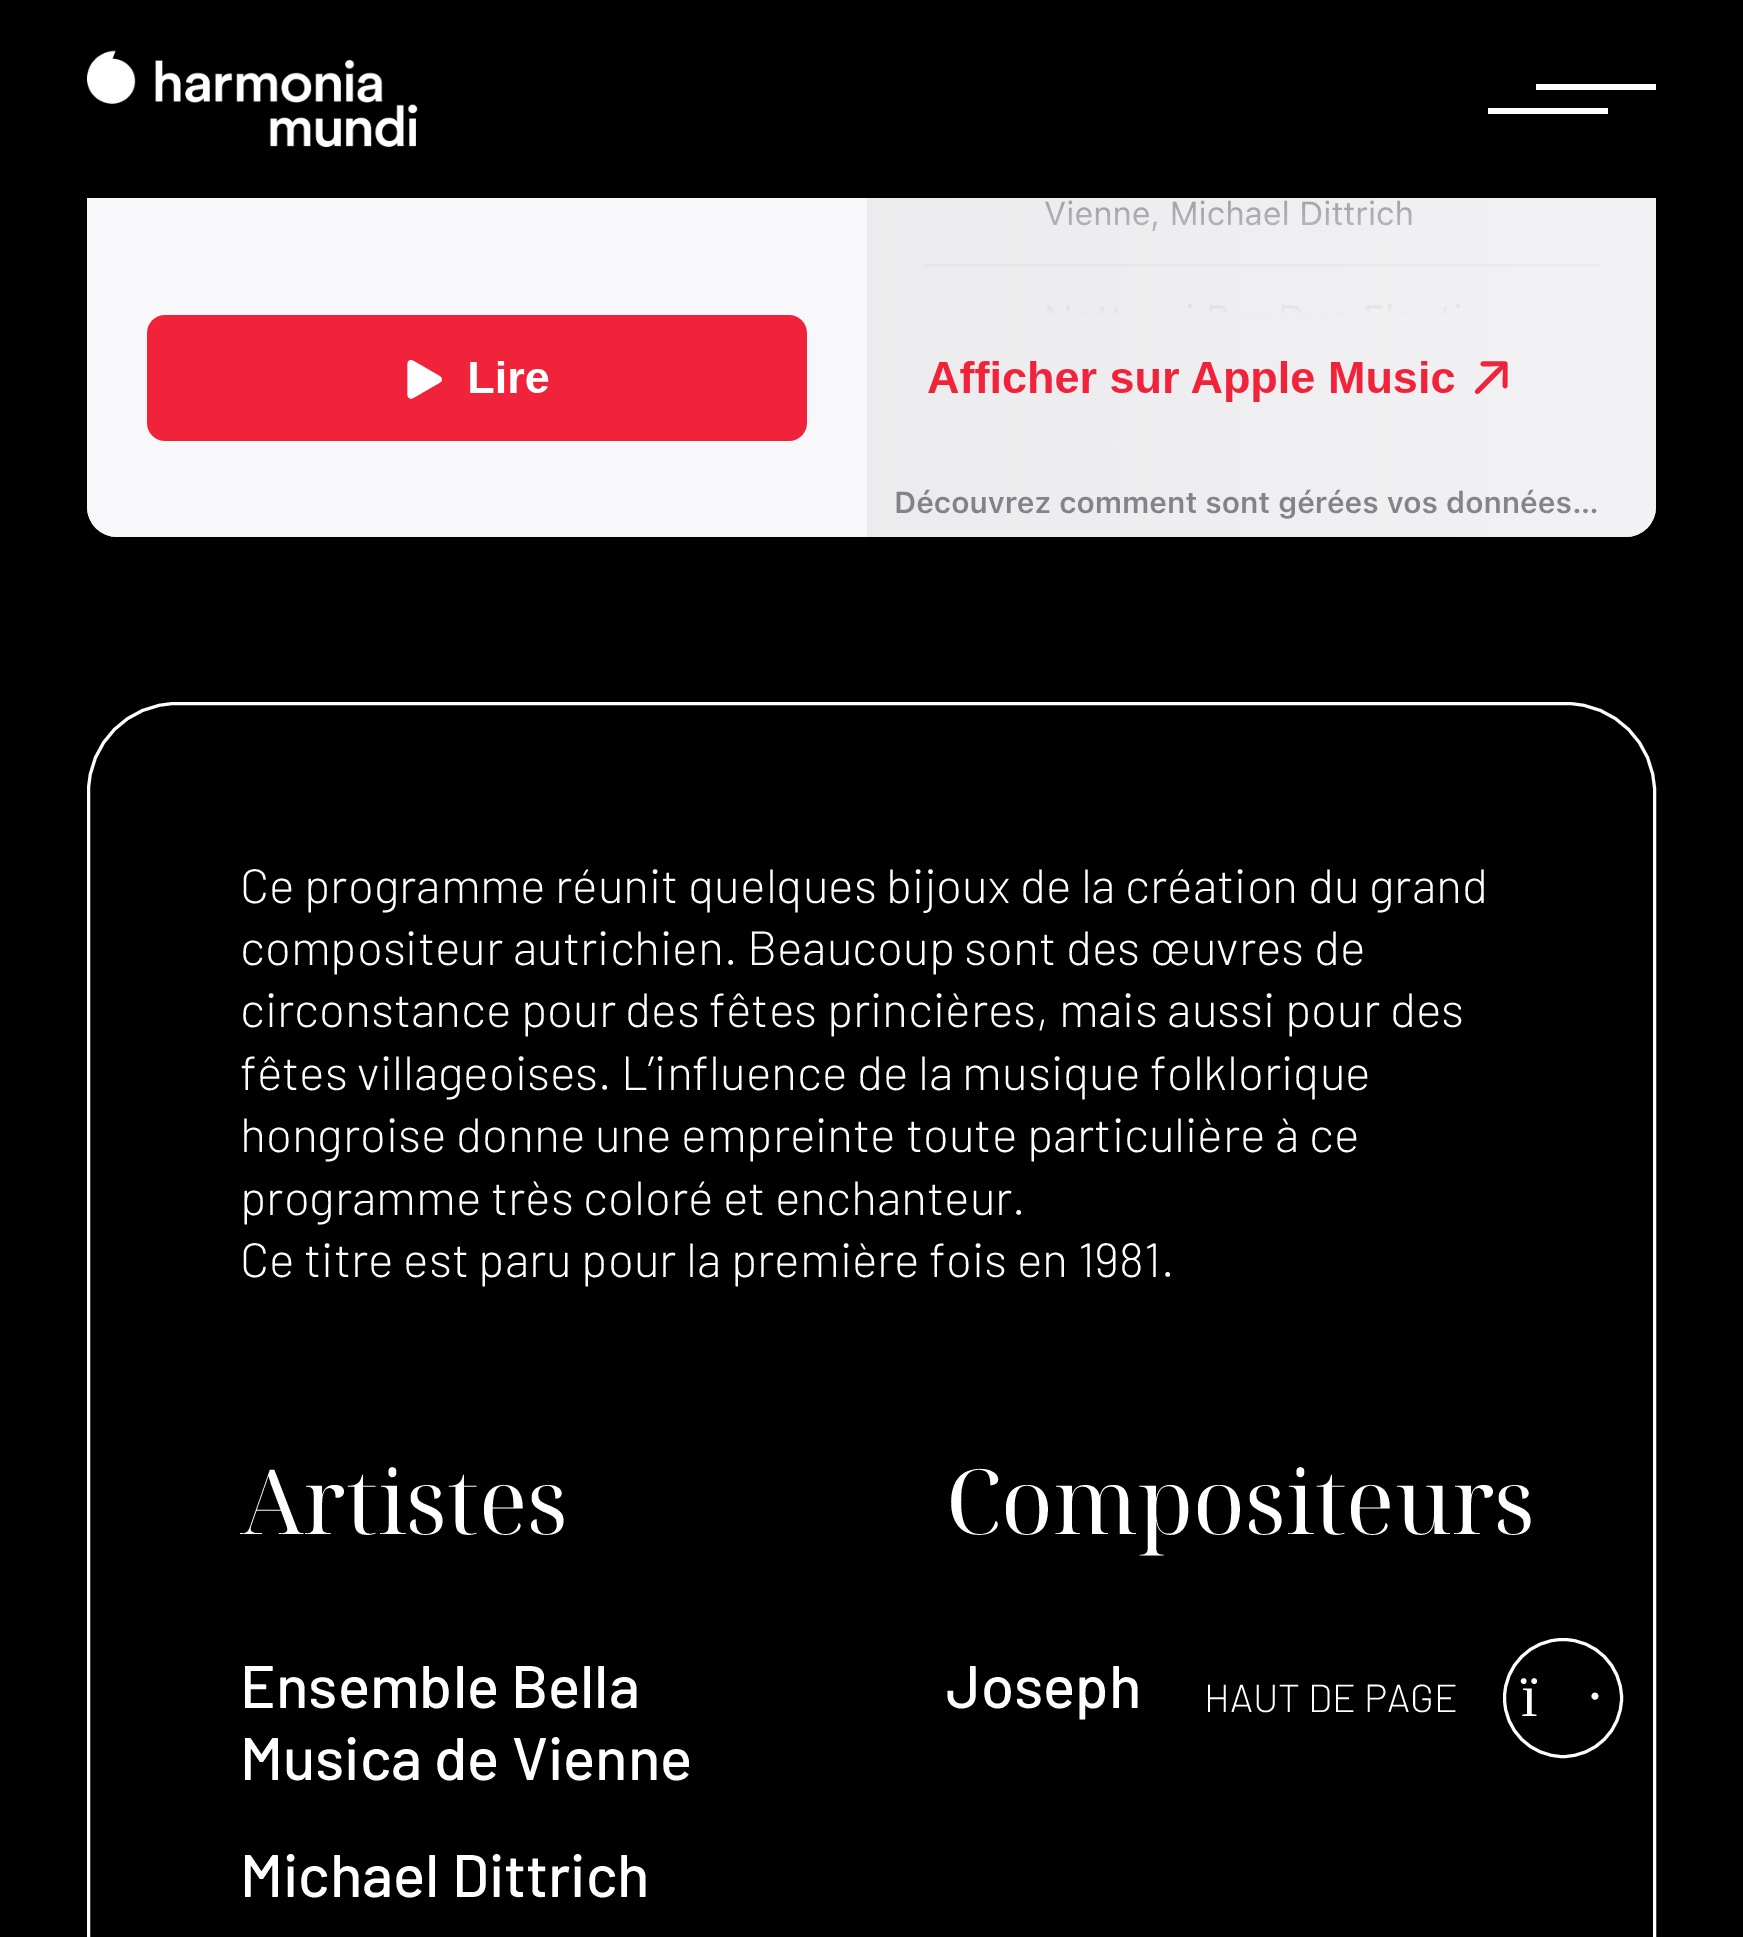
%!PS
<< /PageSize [1743 1937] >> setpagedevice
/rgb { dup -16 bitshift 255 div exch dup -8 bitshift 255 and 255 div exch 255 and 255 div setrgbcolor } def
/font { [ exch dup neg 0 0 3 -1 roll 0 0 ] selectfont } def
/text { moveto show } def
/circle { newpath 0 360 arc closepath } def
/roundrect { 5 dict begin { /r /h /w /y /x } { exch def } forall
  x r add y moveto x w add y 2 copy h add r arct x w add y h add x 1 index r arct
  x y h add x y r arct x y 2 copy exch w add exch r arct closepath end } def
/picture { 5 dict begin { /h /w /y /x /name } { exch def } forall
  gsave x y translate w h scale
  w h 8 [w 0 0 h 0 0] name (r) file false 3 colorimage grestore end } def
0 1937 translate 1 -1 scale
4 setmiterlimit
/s1 { /Barlow-Light 48 font 16#FFFFFF rgb } def
/s2 { /NotoSerifDisplay-Regular 90 font 16#FFFFFF rgb } def
/s3 { /Barlow-Medium 60 font 16#FFFFFF rgb } def
/s4 { /Barlow-Light 39 font 16#FFFFFF rgb } def
/s5 { /LiberationSerif-Regular 60 font 16#FFFFFF rgb } def
16#000000 rgb
0 0 1743 1937 rectfill
(pic1.raw) 87 50 331 98 picture
16#FFFFFF rgb
1536 84 120 6 rectfill
1488 108 120 6 rectfill
(pic2.raw) 87 198 1569 339 picture
3 setlinewidth
88.5 703.5 1566 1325 88.5 roundrect stroke
s1
(Ce programme réunit quelques bijoux de la création du grand) 240 903 text
(compositeur autrichien. Beaucoup sont des œuvres de) 240 965 text
(circonstance pour des fêtes princières, mais aussi pour des) 240 1027 text
(fêtes villageoises. L’influence de la musique folklorique) 240 1090 text
(hongroise donne une empreinte toute particulière à ce) 240 1152 text
(programme très coloré et enchanteur.) 240 1215 text
(Ce titre est paru pour la première fois en 1981.) 240 1277 text
s2
(Artistes) 240 1534 text
s3
(Ensemble Bella) 240 1708 text
(Musica de Vienne) 240 1780 text
(Michael Dittrich) 240 1897 text
s2
(Compositeurs) 946 1534 text
s3
(Joseph) 946 1708 text
s4
(HAUT DE PAGE) 1204 1712 text
1563 1698 58.5 circle stroke
s5
(ï) 1521 1716 text
(·) 1585 1716 text
showpage
